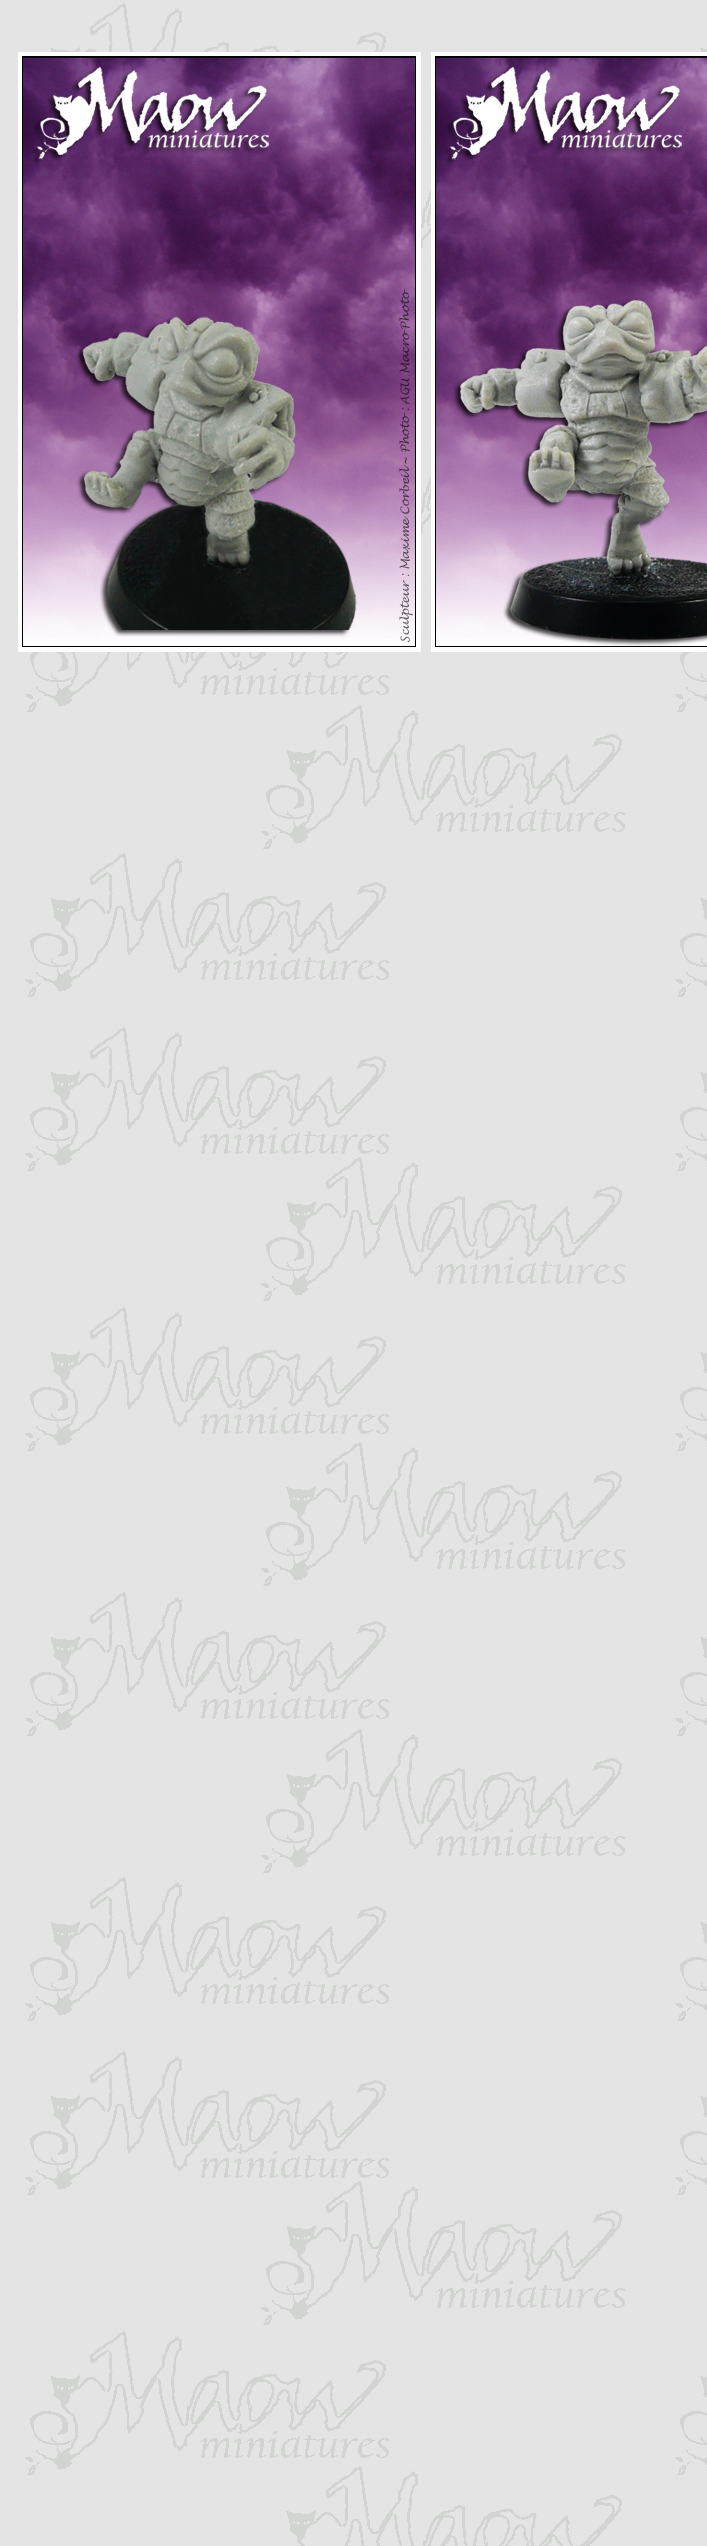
%!PS
<< /PageSize [707 2546] >> setpagedevice
/rgb { dup -16 bitshift 255 div exch dup -8 bitshift 255 and 255 div exch 255 and 255 div setrgbcolor } def
/picture { 5 dict begin { /h /w /y /x /name } { exch def } forall
  gsave x y translate w h scale
  w h 8 [w 0 0 h 0 0] name (r) file false 3 colorimage grestore end } def
0 2546 translate 1 -1 scale
4 setmiterlimit
16#FFFFFF rgb
0 0 707 2546 rectfill
(pic1.raw) 0 0 707 2546 picture
(pic2.raw) 18 52 403 600 picture
(pic3.raw) 431 52 276 600 picture
showpage
